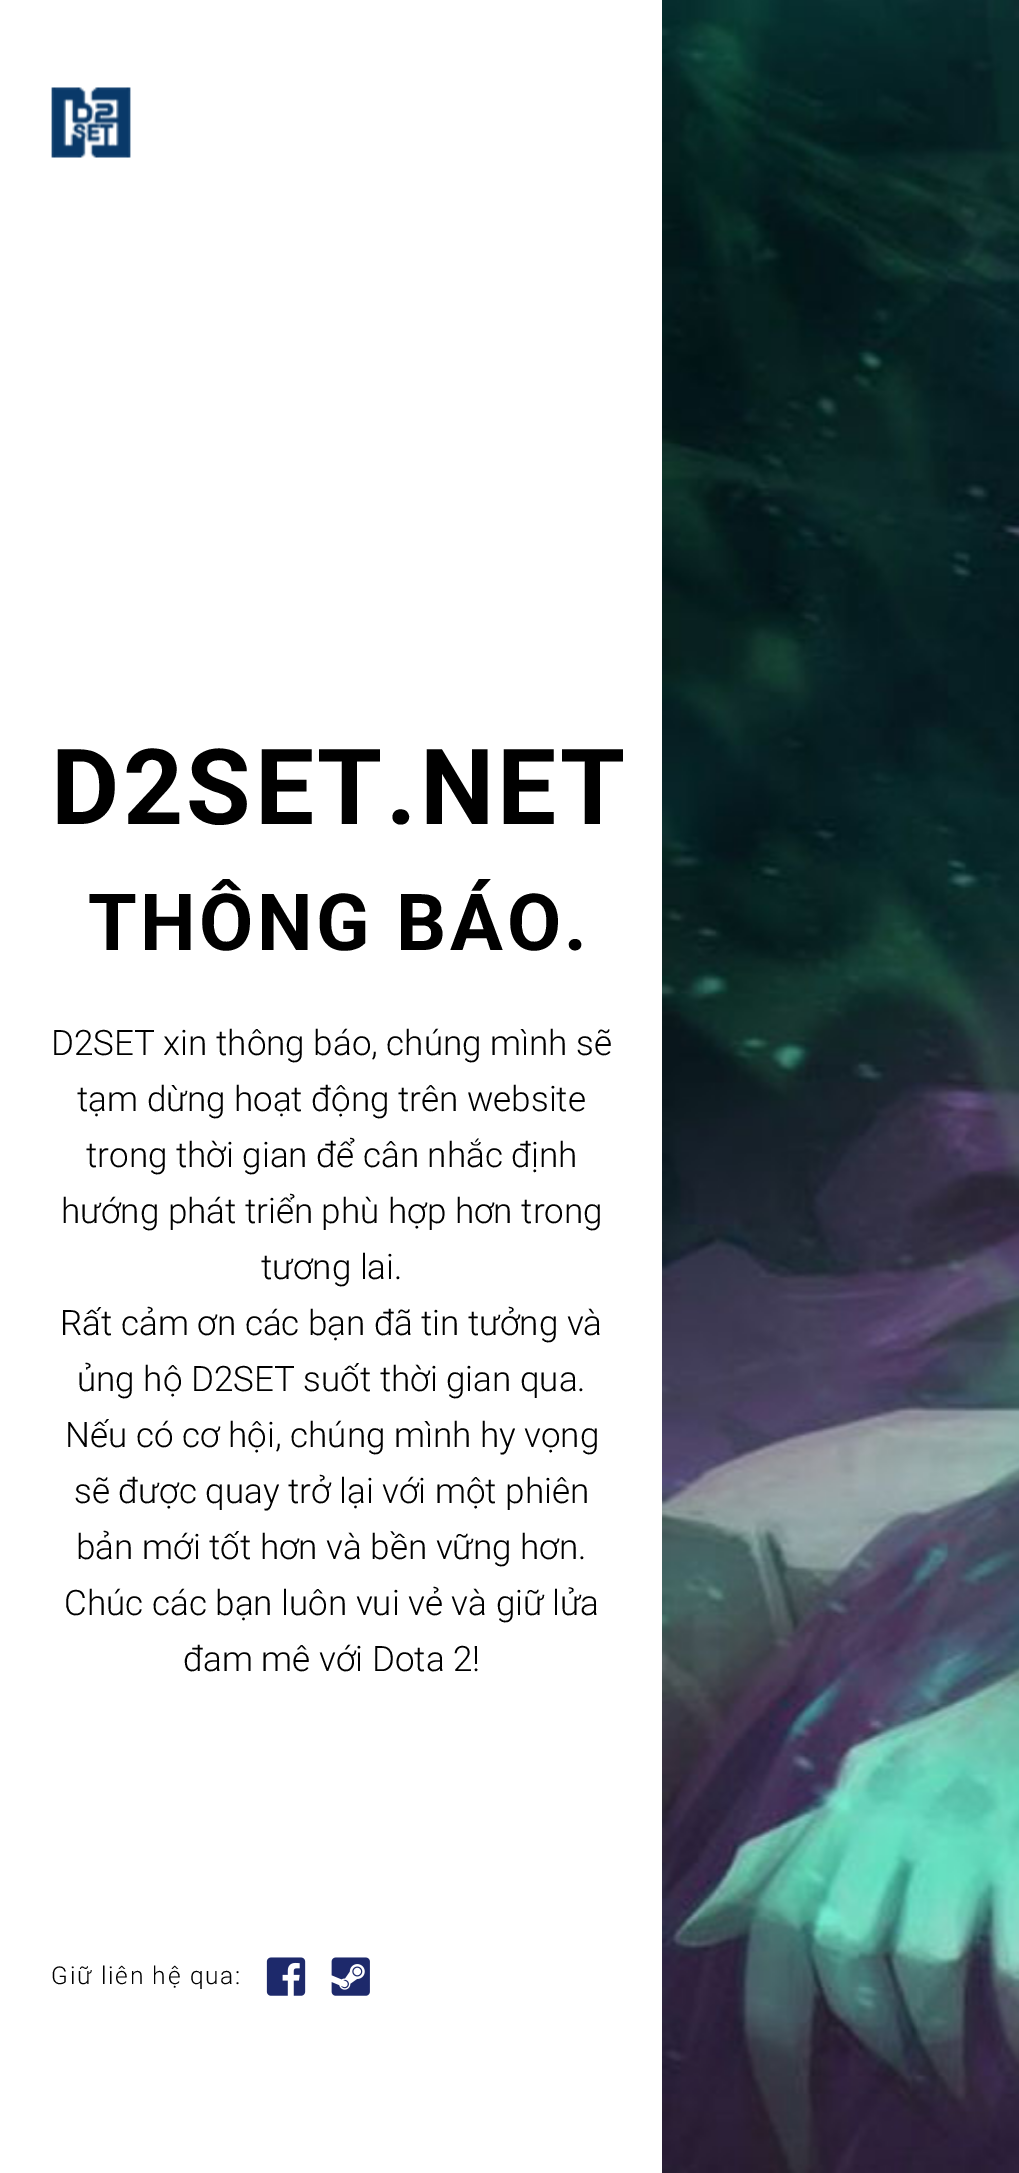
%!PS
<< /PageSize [1019 2173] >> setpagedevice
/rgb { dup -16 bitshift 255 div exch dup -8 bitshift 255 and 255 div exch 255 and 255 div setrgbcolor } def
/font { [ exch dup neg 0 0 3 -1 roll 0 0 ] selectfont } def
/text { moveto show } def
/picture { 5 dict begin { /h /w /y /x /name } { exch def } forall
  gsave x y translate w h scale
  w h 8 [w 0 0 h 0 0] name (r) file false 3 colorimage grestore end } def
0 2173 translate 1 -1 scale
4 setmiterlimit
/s1 { /Roboto-Light 35 font 16#000000 rgb } def
16#FFFFFF rgb
0 0 1019 2173 rectfill
(pic1.raw) 51 87 80 71 picture
/Roboto-Bold 105 font
16#000000 rgb
51 824 moveto 3.5 0 (D2SET.NET) ashow
/Roboto-Bold 78.75 font
88 950 moveto 3.5 0 (THÔNG BÁO.) ashow
s1
(D2SET xin thông báo, chúng mình sẽ) 51 1055 text
(tạm dừng hoạt động trên website) 77 1111 text
(trong thời gian để cân nhắc định) 86 1167 text
(hướng phát triển phù hợp hơn trong) 61 1223 text
(tương lai.) 261 1279 text
(Rất cảm ơn các bạn đã tin tưởng và) 60 1335 text
(ủng hộ D2SET suốt thời gian qua.) 77 1391 text
(Nếu có cơ hội, chúng mình hy vọng) 65 1447 text
(sẽ được quay trở lại với một phiên) 74 1503 text
(bản mới tốt hơn và bền vững hơn.) 76 1559 text
(Chúc các bạn luôn vui vẻ và giữ lửa) 64 1615 text
(đam mê với Dota 2!) 183 1671 text
/Roboto-Light 24.5 font
51 1984 moveto 1.75 0 (Giữ liên hệ qua:) ashow
(pic2.raw) 266 1957 40 39 picture
(pic3.raw) 331 1957 39 39 picture
(pic4.raw) 662 0 357 2173 picture
showpage
